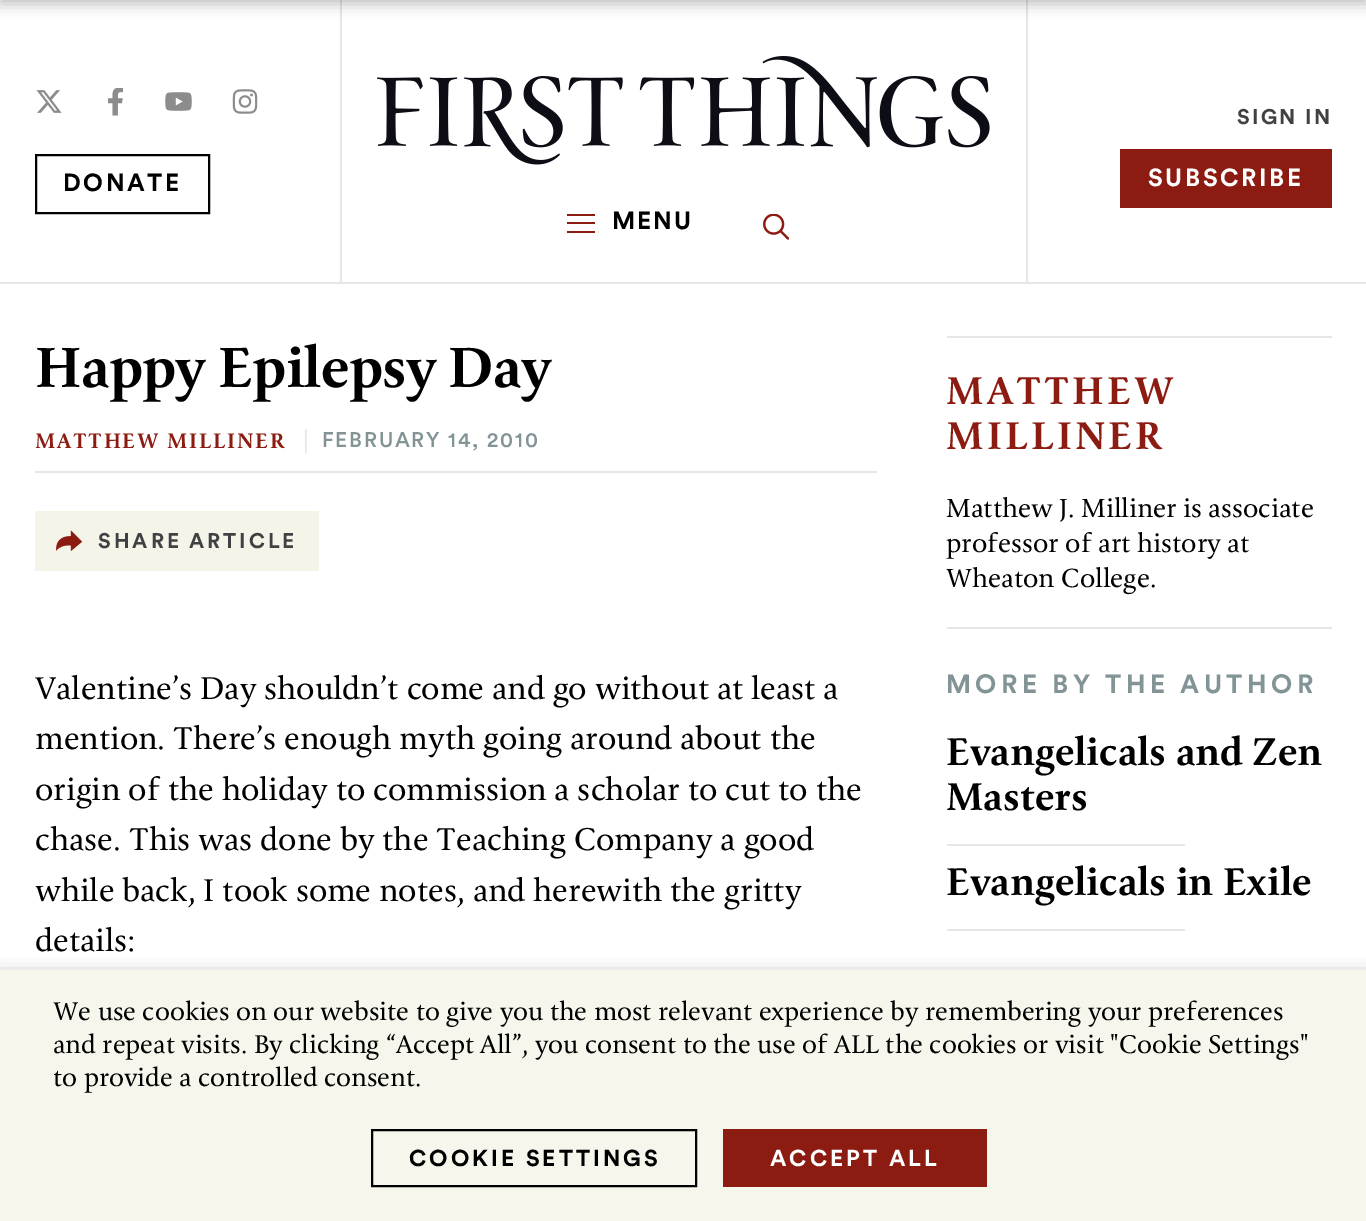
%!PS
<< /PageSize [1366 1221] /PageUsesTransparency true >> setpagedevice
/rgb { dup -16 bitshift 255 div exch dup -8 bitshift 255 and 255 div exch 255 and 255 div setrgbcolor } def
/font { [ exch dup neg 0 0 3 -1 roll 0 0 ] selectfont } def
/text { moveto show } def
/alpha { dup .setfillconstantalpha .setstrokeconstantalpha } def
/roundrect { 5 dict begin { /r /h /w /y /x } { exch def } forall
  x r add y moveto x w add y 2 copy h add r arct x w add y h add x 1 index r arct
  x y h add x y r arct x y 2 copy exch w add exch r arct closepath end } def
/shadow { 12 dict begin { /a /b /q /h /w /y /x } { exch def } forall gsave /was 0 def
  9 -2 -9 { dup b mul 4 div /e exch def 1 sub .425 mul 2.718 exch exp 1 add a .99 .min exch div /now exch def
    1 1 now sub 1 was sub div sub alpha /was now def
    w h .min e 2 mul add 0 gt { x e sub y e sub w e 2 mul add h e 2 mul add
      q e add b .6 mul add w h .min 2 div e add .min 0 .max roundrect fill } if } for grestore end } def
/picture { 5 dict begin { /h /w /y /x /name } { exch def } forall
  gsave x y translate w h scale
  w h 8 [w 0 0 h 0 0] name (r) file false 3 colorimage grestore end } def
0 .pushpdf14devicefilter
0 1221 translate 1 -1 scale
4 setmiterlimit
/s1 { /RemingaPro-Regular 31.5 font 16#000000 rgb } def
/s2 { /RemingaPro-Regular 26.25 font 16#000000 rgb } def
/s3 { /RemingaPro-Medium 38.75 font 16#000000 rgb } def
/s4 { /RemingaPro-Regular 25.65 font 16#000000 rgb } def
16#FFFFFF rgb
0 0 1366 1221 rectfill
16#E6E6E6 rgb
340 0 2 282 rectfill
1026 0 2 282 rectfill
16#000000 rgb
0 -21 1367 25 0 7 0.25 shadow
16#E6E6E6 rgb
0 282 1366 2 rectfill
(pic1.raw) 36 90 26 23 picture
(pic2.raw) 108 88 15 28 picture
(pic3.raw) 165 92 27 19 picture
(pic4.raw) 232 89 26 25 picture
16#000000 rgb
2 setlinewidth
36 155 173 58 rectstroke
/Circular-Bold 24.5 font
63 191 moveto 2.6 0 (DONATE) ashow
/Circular-Bold 21 font
16#414042 rgb
1237 124 moveto 2.25 0 (SIGN IN) ashow
16#8C1B11 rgb
1120 149 212 59 rectfill
/Circular-Bold 24.5 font
16#FFFFFF rgb
1148 186 moveto 2.6 0 (SUBSCRIBE) ashow
(pic5.raw) 377 56 613 109 picture
16#8C1B11 rgb
567 222 28 2 rectfill
567 214 28 2 rectfill
567 231 28 2 rectfill
16#000000 rgb
612 229 moveto 1.75 0 (MENU) ashow
(pic6.raw) 763 214 26 26 picture
/RemingaPro-Medium 56.75 font
35 387 moveto -0.75 0 (Happy Epilepsy Day) ashow
16#E6E6E6 rgb
35 471 842 2 rectfill
/RemingaPro-Medium 21 font
16#8C1B11 rgb
35 448 moveto 1.75 0 (MATTHEW MILLINER) ashow
16#E6E6E6 rgb
303 448 moveto 1.75 0 (|) ashow
/Circular-Medium 21 font
16#829496 rgb
322 447 moveto 1.75 0 (FEBRUARY 14, 2010) ashow
16#F4F4E9 rgb
35 511 284 60 rectfill
(pic7.raw) 56 530 26 21 picture
/Circular-Bold 21 font
16#414042 rgb
98 548 moveto 3 0 (SHARE) ashow
189 548 moveto 3 0 (ARTICLE) ashow
s1
(Valentine’s Day shouldn’t come and go without at least a) 35 699 text
(mention. There’s enough myth going around about the) 35 749 text
(origin of the holiday to commission a scholar to cut to the) 35 800 text
(chase. This was done by the Teaching Company a good) 35 850 text
(while back, I took some notes, and herewith the gritty) 35 901 text
(details:) 35 951 text
16#E6E6E6 rgb
947 336 385 2 rectfill
947 627 385 2 rectfill
/RemingaPro-Medium 38.75 font
16#8C1B11 rgb
946 404 moveto 3.25 0 (MATTHEW) ashow
946 449 moveto 3.25 0 (MILLINER) ashow
s2
(Matthew J. Milliner is associate) 946 517 text
(professor of art history at) 946 552 text
(Wheaton College.) 946 587 text
/Circular-Bold 26.25 font
16#829496 rgb
946 693 moveto 4.4 0 (MORE BY THE AUTHOR) ashow
s3
(Evangelicals and Zen) 946 765 text
(Masters) 946 810 text
16#E6E6E6 rgb
947 844 238 2 rectfill
s3
(Evangelicals in Exile) 946 895 text
16#E6E6E6 rgb
947 929 238 2 rectfill
16#000000 rgb
0 978 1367 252 0 9 0.5 shadow
16#F6F6ED rgb
0 970 1366 251 rectfill
s4
(We use cookies on our website to give you the most relevant experience by remembering your preferences) 53 1020 text
(and repeat visits. By clicking “Accept All”, you consent to the use of ALL the cookies or visit "Cookie Settings") 53 1053 text
(to provide a controlled consent.) 53 1086 text
372 1130 324 56 rectstroke
/Circular-Bold 22.75 font
409 1166 moveto 3 0 (COOKIE SETTINGS) ashow
16#8C1B11 rgb
723 1129 264 58 rectfill
16#FFFFFF rgb
770 1166 moveto 3 0 (ACCEPT ALL) ashow
.poppdf14devicefilter showpage
